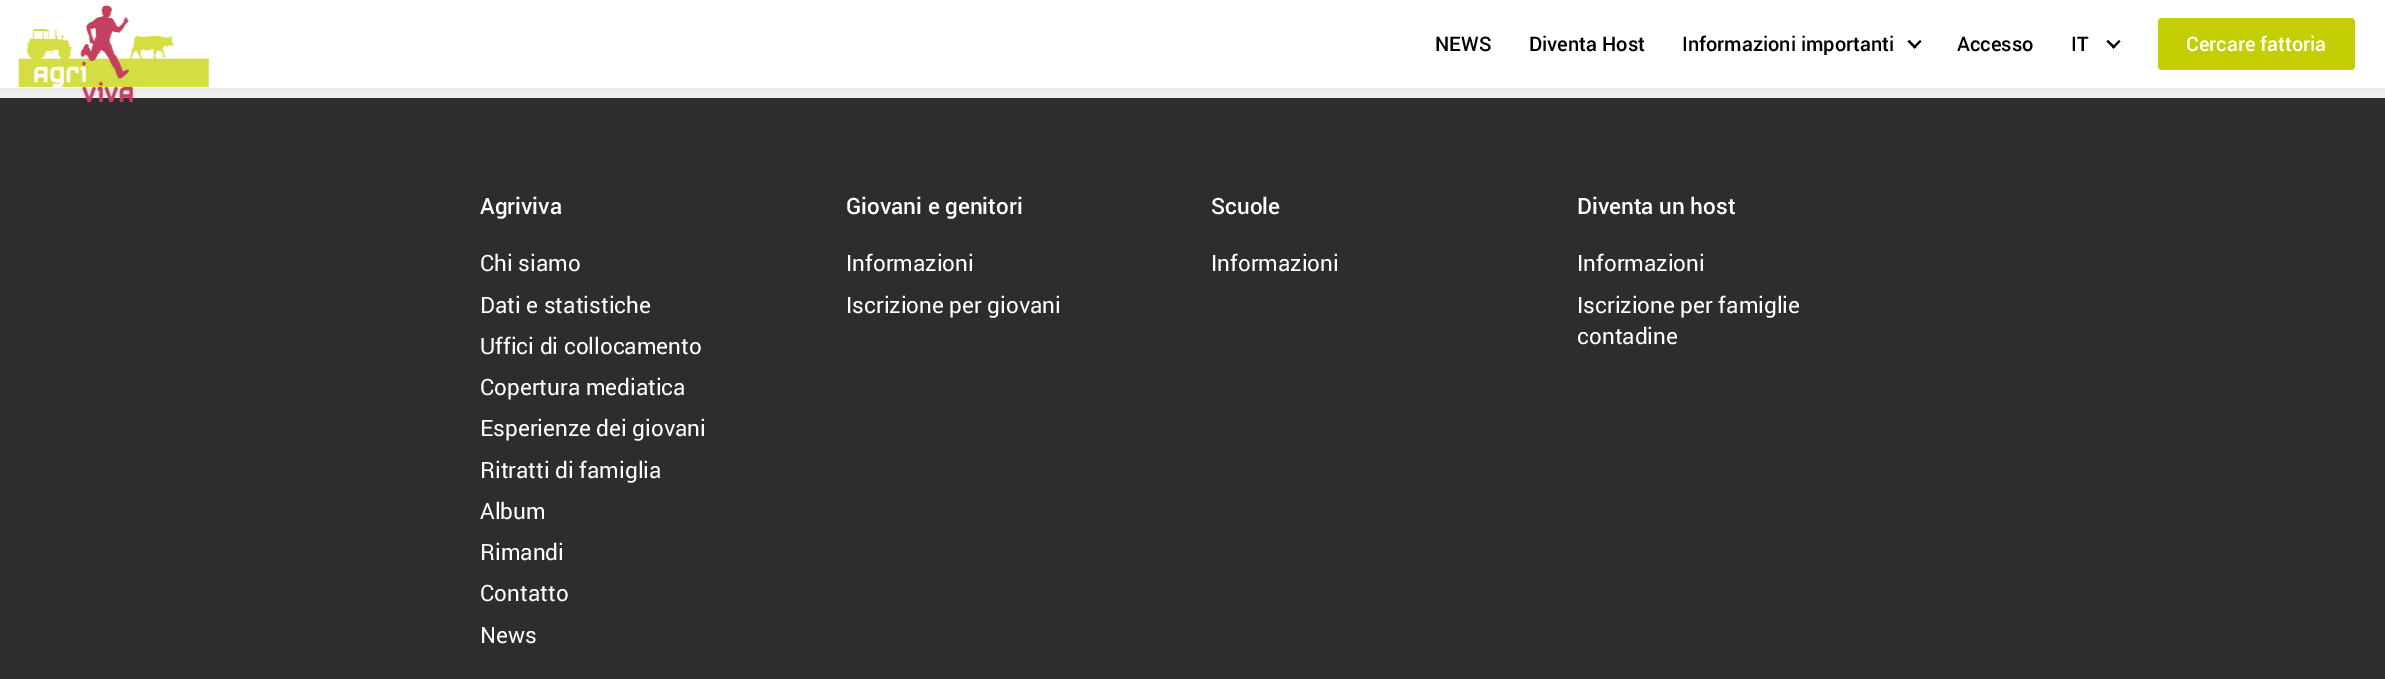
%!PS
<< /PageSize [2385 679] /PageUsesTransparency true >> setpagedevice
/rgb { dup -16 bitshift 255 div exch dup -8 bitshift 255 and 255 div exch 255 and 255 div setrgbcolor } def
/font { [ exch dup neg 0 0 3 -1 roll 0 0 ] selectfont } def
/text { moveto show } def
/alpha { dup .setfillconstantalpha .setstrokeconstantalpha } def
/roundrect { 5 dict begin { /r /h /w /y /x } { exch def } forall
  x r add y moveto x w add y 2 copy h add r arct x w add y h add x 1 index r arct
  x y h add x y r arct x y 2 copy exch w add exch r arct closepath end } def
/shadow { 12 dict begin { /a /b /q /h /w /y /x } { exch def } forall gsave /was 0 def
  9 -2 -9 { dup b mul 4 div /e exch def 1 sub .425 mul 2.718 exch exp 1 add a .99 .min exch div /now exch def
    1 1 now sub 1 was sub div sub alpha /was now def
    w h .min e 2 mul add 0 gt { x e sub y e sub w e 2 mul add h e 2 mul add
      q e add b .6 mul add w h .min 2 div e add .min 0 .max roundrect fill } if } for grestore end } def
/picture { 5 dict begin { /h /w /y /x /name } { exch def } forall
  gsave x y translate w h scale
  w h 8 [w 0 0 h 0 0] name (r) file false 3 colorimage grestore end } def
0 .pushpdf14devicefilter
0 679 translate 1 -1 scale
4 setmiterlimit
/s1 { /Roboto-Medium 20 font 16#000000 rgb } def
/s2 { /Roboto-Medium 20 font 16#FFFFFF rgb } def
/s3 { /Roboto-Medium 22.5 font 16#FFFFFF rgb } def
/s4 { /Roboto-Regular 22.5 font 16#FFFFFF rgb } def
16#F2F2F2 rgb
0 0 2385 679 rectfill
16#2D2D2D rgb
0 98 2385 581 rectfill
16#000000 rgb
0 4 2385 87 0 4.5 0.06 shadow
16#FFFFFF rgb
0 0 2385 88 rectfill
(pic1.raw) 18 5 191 98 picture
s1
(NEWS) 1435 51 text
(Diventa Host) 1529 51 text
(Informazioni importanti) 1682 51 text
1920 40 moveto 1921.5 41.5 lineto 1914.5 48.5 lineto 1913 47 lineto closepath fill
1909.5 40 moveto 1916.5 47 lineto 1914.5 48.5 lineto 1907.5 41.5 lineto closepath fill
(Accesso) 1957 51 text
(IT) 2071 51 text
2119 40 moveto 2120.5 41.5 lineto 2113.5 48.5 lineto 2112 47 lineto closepath fill
2108 40 moveto 2115.5 47 lineto 2113.5 48.5 lineto 2106.5 41.5 lineto closepath fill
16#C3CF03 rgb
2158 18 197 52 4 roundrect fill
s2
(Cercare fattoria) 2186 51 text
s3
(Agriviva) 480 214 text
s4
(Chi siamo) 480 271 text
(Dati e statistiche) 480 313 text
(Uffici di collocamento) 480 354 text
(Copertura mediatica) 480 395 text
(Esperienze dei giovani) 480 436 text
(Ritratti di famiglia) 480 478 text
(Album) 480 519 text
(Rimandi) 480 560 text
(Contatto) 480 601 text
(News) 480 643 text
s3
(Giovani e genitori) 846 214 text
s4
(Informazioni) 846 271 text
(Iscrizione per giovani) 846 313 text
s3
(Scuole) 1211 214 text
s4
(Informazioni) 1211 271 text
s3
(Diventa un host) 1577 214 text
s4
(Informazioni) 1577 271 text
(Iscrizione per famiglie) 1577 313 text
(contadine) 1577 344 text
.poppdf14devicefilter showpage
